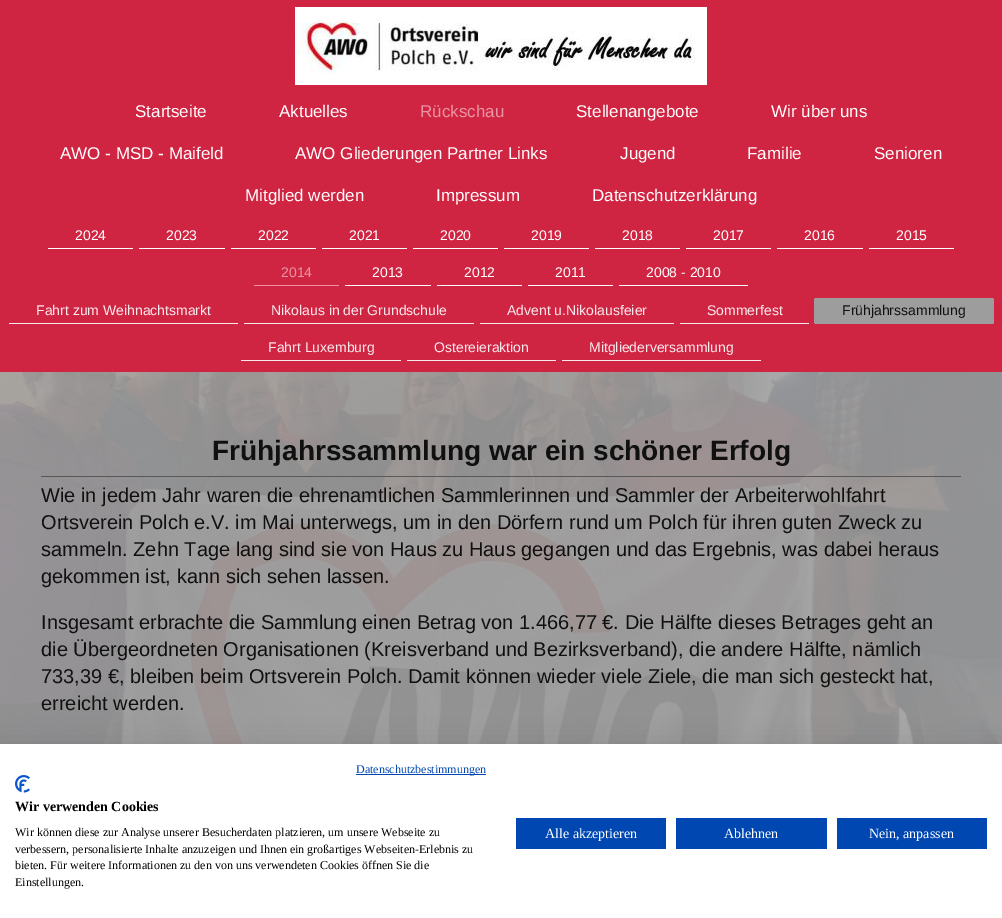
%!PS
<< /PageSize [1002 918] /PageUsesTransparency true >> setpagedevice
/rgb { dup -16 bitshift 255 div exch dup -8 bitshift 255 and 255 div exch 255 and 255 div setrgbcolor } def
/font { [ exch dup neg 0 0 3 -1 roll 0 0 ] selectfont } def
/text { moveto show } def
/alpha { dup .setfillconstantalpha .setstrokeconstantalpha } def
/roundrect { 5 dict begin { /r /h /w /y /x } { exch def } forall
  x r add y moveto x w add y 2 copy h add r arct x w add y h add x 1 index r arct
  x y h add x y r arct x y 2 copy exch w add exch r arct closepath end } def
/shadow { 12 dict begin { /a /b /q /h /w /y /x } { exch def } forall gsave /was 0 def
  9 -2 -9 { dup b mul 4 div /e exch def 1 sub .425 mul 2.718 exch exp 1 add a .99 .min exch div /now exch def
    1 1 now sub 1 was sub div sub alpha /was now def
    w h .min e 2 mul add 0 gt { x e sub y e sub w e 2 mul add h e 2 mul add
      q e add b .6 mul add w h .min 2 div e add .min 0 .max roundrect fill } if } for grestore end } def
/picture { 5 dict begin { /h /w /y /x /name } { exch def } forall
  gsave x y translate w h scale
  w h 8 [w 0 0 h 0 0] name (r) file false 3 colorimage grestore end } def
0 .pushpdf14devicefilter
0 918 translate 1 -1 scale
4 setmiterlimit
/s1 { /LiberationSans-Regular 17 font 16#FFFFFF rgb } def
/s2 { /LiberationSans-Regular 17 font 16#EB93A2 rgb } def
/s3 { /LiberationSans-Regular 14 font 16#FFFFFF rgb } def
/s4 { /LiberationSans-Regular 14 font 16#EB93A2 rgb } def
/s5 { /LiberationSans-Regular 14 font 16#FAE9EC rgb } def
/s6 { /LiberationSans-Regular 14 font 16#101010 rgb } def
/s7 { /LiberationSans-Bold 28 font 16#101010 rgb } def
/s8 { /LiberationSans-Regular 20 font 16#101010 rgb } def
/s9 { /LiberationSerif-Regular 12 font 16#0047B2 rgb } def
/s10 { /LiberationSerif-Bold 14 font 16#000000 rgb } def
/s11 { /LiberationSerif-Regular 12 font 16#000000 rgb } def
/s12 { /LiberationSerif-Regular 14 font 16#FFFFFF rgb } def
16#FFFFFF rgb
0 0 1002 918 rectfill
(pic1.raw) 0 372 1002 372 picture
16#CF2542 rgb
0 0 1002 372 rectfill
(pic2.raw) 295 7 412 78 picture
s1
(Startseite) 135 117 text
(Aktuelles) 279 117 text
s2
(Rückschau) 420 117 text
s1
(Stellenangebote) 576 117 text
(Wir über uns) 771 117 text
(AWO - MSD - Maifeld) 60 159 text
(AWO Gliederungen Partner Links) 295 159 text
(Jugend) 620 159 text
(Familie) 747 159 text
(Senioren) 874 159 text
(Mitglied werden) 245 201 text
(Impressum) 436 201 text
(Datenschutzerklärung) 592 201 text
48 248 85 1 rectfill
s3
(2024) 75 240 text
139 248 86 1 rectfill
(2023) 166 240 text
231 248 85 1 rectfill
(2022) 258 240 text
322 248 85 1 rectfill
(2021) 349 240 text
413 248 85 1 rectfill
(2020) 440 240 text
504 248 85 1 rectfill
(2019) 531 240 text
595 248 85 1 rectfill
(2018) 622 240 text
686 248 85 1 rectfill
(2017) 713 240 text
777 248 86 1 rectfill
(2016) 804 240 text
869 248 85 1 rectfill
(2015) 896 240 text
16#EB93A2 rgb
254 285 85 1 rectfill
(2014) 281 277 text
16#FFFFFF rgb
345 285 86 1 rectfill
(2013) 372 277 text
437 285 85 1 rectfill
(2012) 464 277 text
528 285 85 1 rectfill
(2011) 555 277 text
619 285 129 1 rectfill
(2008 - 2010) 646 277 text
16#FAE9EC rgb
9 323 229 1 rectfill
(Fahrt zum Weihnachtsmarkt) 36 315 text
244 323 230 1 rectfill
(Nikolaus in der Grundschule) 271 315 text
480 323 194 1 rectfill
(Advent u.Nikolausfeier) 507 315 text
680 323 129 1 rectfill
(Sommerfest) 707 315 text
16#9D9D9D rgb
814 298 180 26 2 roundrect fill
815 323 178 1 rectfill
s6
(Frühjahrssammlung) 842 315 text
16#FAE9EC rgb
241 360 160 1 rectfill
(Fahrt Luxemburg) 268 352 text
407 360 149 1 rectfill
(Ostereieraktion) 434 352 text
562 360 199 1 rectfill
(Mitgliederversammlung) 589 352 text
0.9 alpha
16#9D9D9D rgb
0 372 1002 372 rectfill
1 alpha
s7
(Frühjahrssammlung war ein schöner Erfolg) 212 460 text
16#585858 rgb
41 476 920 1 rectfill
s8
(Wie in jedem Jahr waren die ehrenamtlichen Sammlerinnen und Sammler der Arbeiterwohlfahrt) 41 502 text
(Ortsverein Polch e.V. im Mai unterwegs, um in den Dörfern rund um Polch für ihren guten Zweck zu) 41 529 text
(sammeln. Zehn Tage lang sind sie von Haus zu Haus gegangen und das Ergebnis, was dabei heraus) 41 556 text
(gekommen ist, kann sich sehen lassen.) 41 583 text
(Insgesamt erbrachte die Sammlung einen Betrag von 1.466,77 €. Die Hälfte dieses Betrages geht an) 41 629 text
(die Übergeordneten Organisationen \(Kreisverband und Bezirksverband\), die andere Hälfte, nämlich) 41 656 text
(733,39 €, bleiben beim Ortsverein Polch. Damit können wieder viele Ziele, die man sich gesteckt hat,) 41 683 text
(erreicht werden.) 41 710 text
16#000000 rgb
0 744 1002 174 0 12 0.1 shadow
16#FFFFFF rgb
0 744 1002 174 rectfill
16#0047B2 rgb
356 774 130 1 rectfill
s9
(Datenschutzbestimmungen) 356 773 text
(pic3.raw) 15 775 15 18 picture
s10
(Wir verwenden Cookies) 15 811 text
s11
(Wir können diese zur Analyse unserer Besucherdaten platzieren, um unsere Webseite zu) 15 836 text
(verbessern, personalisierte Inhalte anzuzeigen und Ihnen ein großartiges Webseiten-Erlebnis zu) 15 853 text
(bieten. Für weitere Informationen zu den von uns verwendeten Cookies öffnen Sie die) 15 869 text
(Einstellungen.) 15 886 text
16#0047B2 rgb
516 818 150 31 rectfill
s12
(Alle akzeptieren) 545 838 text
16#0047B2 rgb
676 818 151 31 rectfill
s12
(Ablehnen) 724 838 text
16#0047B2 rgb
837 818 150 31 rectfill
s12
(Nein, anpassen) 869 838 text
.poppdf14devicefilter showpage
